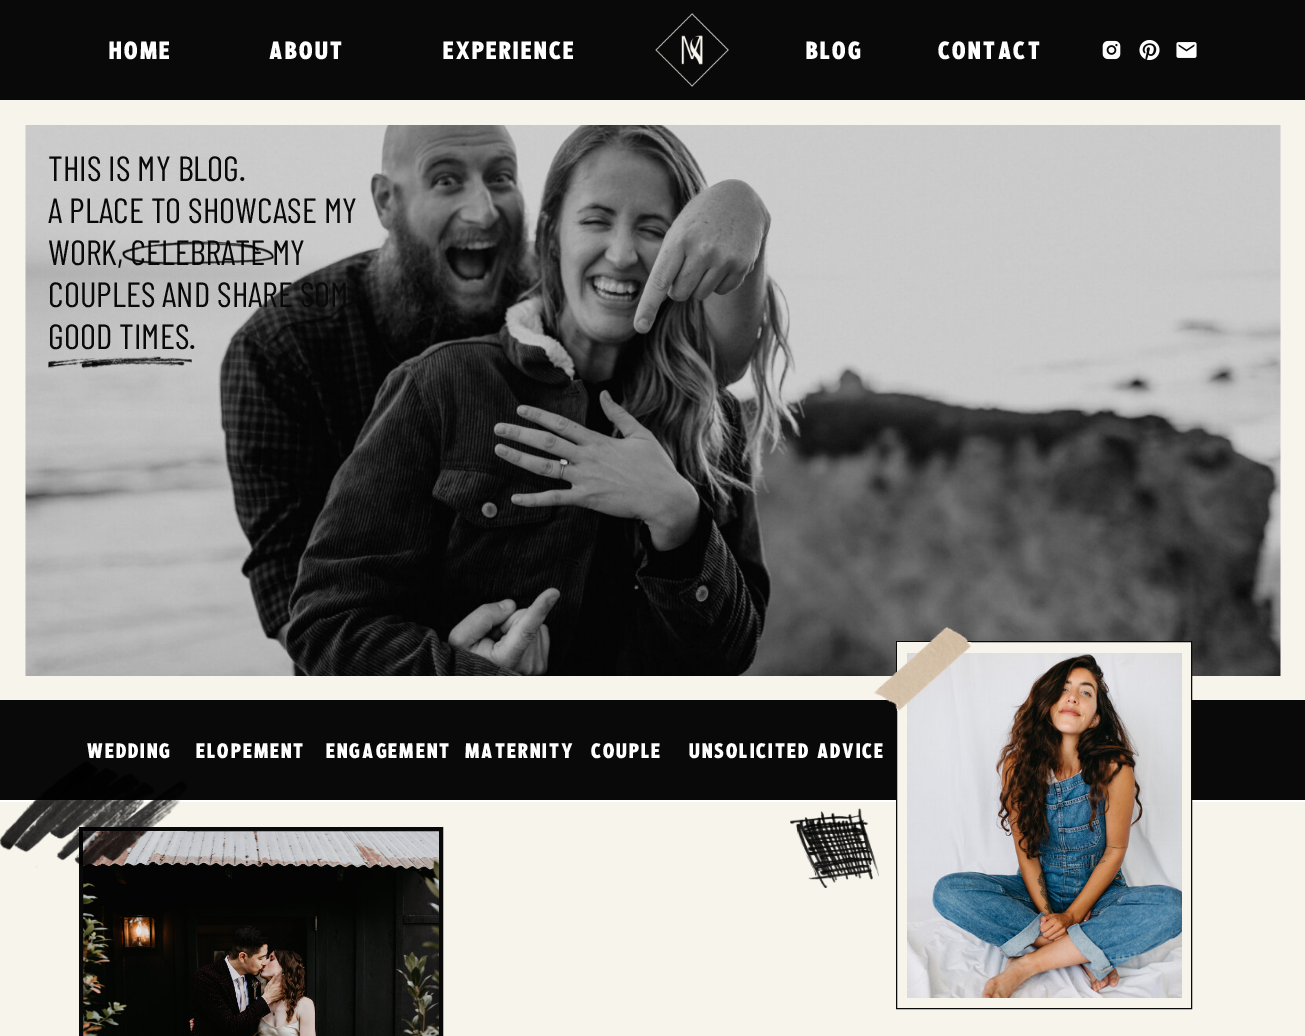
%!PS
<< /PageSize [1305 1036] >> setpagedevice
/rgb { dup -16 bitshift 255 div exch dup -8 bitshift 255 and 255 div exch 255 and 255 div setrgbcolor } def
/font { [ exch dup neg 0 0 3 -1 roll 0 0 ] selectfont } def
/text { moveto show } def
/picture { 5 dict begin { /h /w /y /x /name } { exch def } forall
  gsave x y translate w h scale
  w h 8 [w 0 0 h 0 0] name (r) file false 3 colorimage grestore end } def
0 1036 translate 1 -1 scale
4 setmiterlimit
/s1 { /BarlowCondensed-Regular 35 font 16#090909 rgb } def
16#FFFFFF rgb
0 0 1305 1036 rectfill
16#090909 rgb
0 0 1305 100 rectfill
/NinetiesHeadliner-Regular 25 font
16#FFFFFF rgb
109 59 moveto 2.5 0 (HOME) ashow
269 59 moveto 2.5 0 (ABOUT) ashow
443 59 moveto 2.5 0 (EXPERIENCE) ashow
(pic1.raw) 655 13 74 74 picture
806 59 moveto 2.5 0 (BLOG) ashow
938 59 moveto 2.5 0 (CONTACT) ashow
(pic2.raw) 1102 40 19 20 picture
(pic3.raw) 1139 39 21 22 picture
(pic4.raw) 1176 42 21 16 picture
16#F7F4EC rgb
0 100 1305 600 rectfill
(pic5.raw) 25 125 1256 551 picture
s1
(THIS IS MY BLOG.) 48 181 text
(A PLACE TO SHOWCASE MY) 48 223 text
(WORK, CELEBRATE MY) 48 265 text
(COUPLES AND SHARE SOM) 48 307 text
(GOOD TIMES.) 48 349 text
(pic6.raw) 122 241 152 24 picture
(pic7.raw) 48 356 144 13 picture
0 700 1305 100 rectfill
/NinetiesHeadliner-Regular 21 font
16#FFFFFF rgb
87 758 moveto 2.1 0 (WEDDING) ashow
196 758 moveto 2.1 0 (ELOPEMENT) ashow
326 758 moveto 2.1 0 (ENGAGEMENT) ashow
465 758 moveto 2.1 0 (MATERNITY) ashow
591 758 moveto 2.1 0 (COUPLE) ashow
689 758 moveto 2.1 0 (UNSOLICITED ADVICE) ashow
16#F7F4EC rgb
897 642 294 160 rectfill
0 802 1305 234 rectfill
16#090909 rgb
896.5 641.5 295 367 rectstroke
(pic9.raw) 907 653 275 345 picture
(pic8.raw) 874 626 97 85 picture
(pic11.raw) 83 831 356 205 picture
4 setlinewidth
81 829 360 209 rectstroke
(pic10.raw) 0 761 187 107 picture
(pic12.raw) 790 808 89 80 picture
showpage
